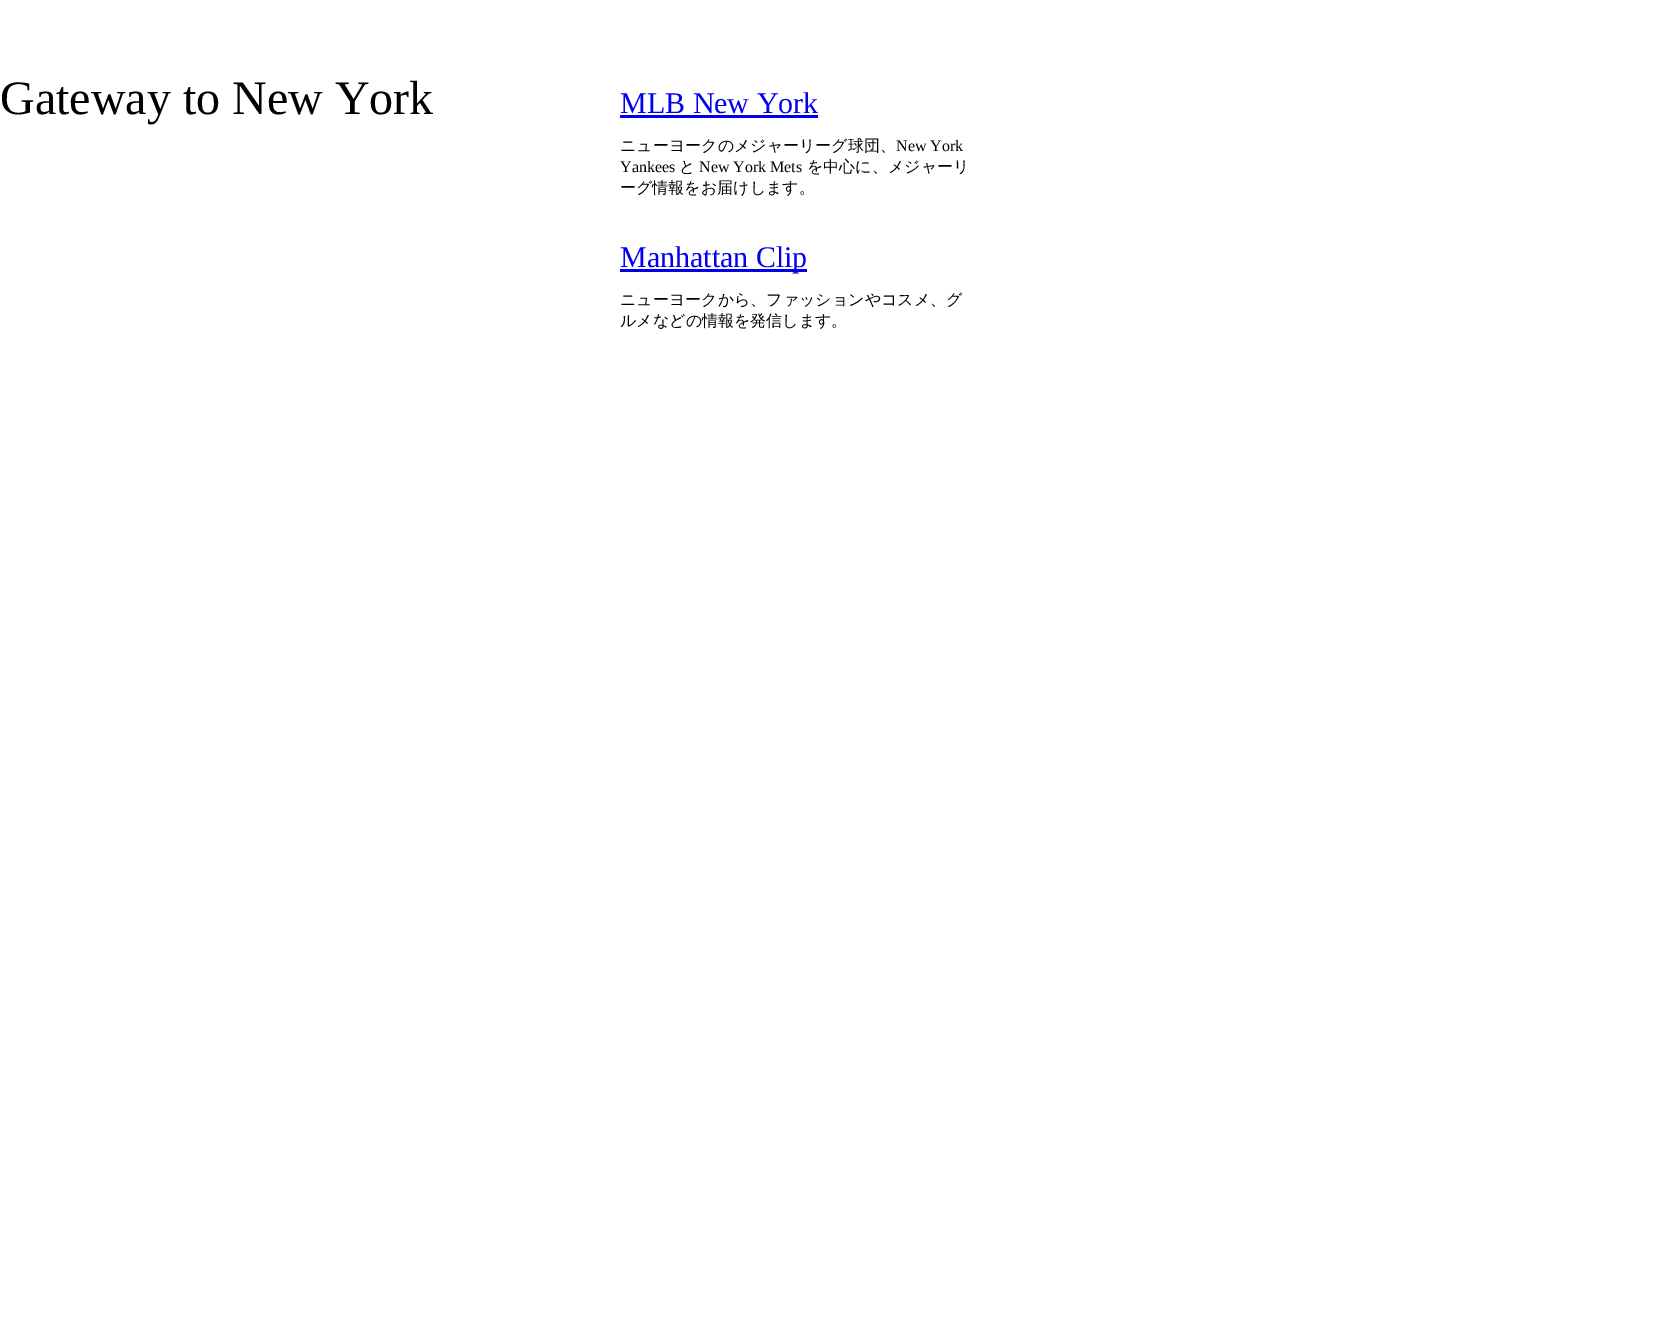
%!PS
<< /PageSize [1672 1329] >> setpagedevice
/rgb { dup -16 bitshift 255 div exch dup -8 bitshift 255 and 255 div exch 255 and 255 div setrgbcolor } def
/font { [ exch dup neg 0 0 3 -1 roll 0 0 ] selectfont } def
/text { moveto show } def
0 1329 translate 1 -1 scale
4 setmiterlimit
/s1 { /LiberationSerif-Regular 48 font 16#000000 rgb } def
/s2 { /LiberationSerif-Regular 30 font 16#0000EE rgb } def
/s3 { /WenQuanYiZenHei-Medium 16 font 16#000000 rgb } def
/s4 { /LiberationSerif-Regular 16 font 16#000000 rgb } def
16#FFFFFF rgb
0 0 1672 1329 rectfill
s1
(Gateway to New York) 0 114 text
s2
(MLB New York) 620 113 text
620 115 198 3 rectfill
s3
(ニューヨークのメジャーリーグ球団、) 620 151 text
s4
(New York) 896 151 text
(Yankees) 620 172 text
s3
(と) 679 172 text
s4
(New York Mets) 699 172 text
s3
(を中心に、メジャーリ) 807 172 text
(ーグ情報をお届けします。) 620 193 text
16#0000EE rgb
620 269 187 3 rectfill
s2
(Manhattan Clip) 620 267 text
s3
(ニューヨークから、ファッションやコスメ、グ) 620 305 text
(ルメなどの情報を発信します。) 620 326 text
showpage
